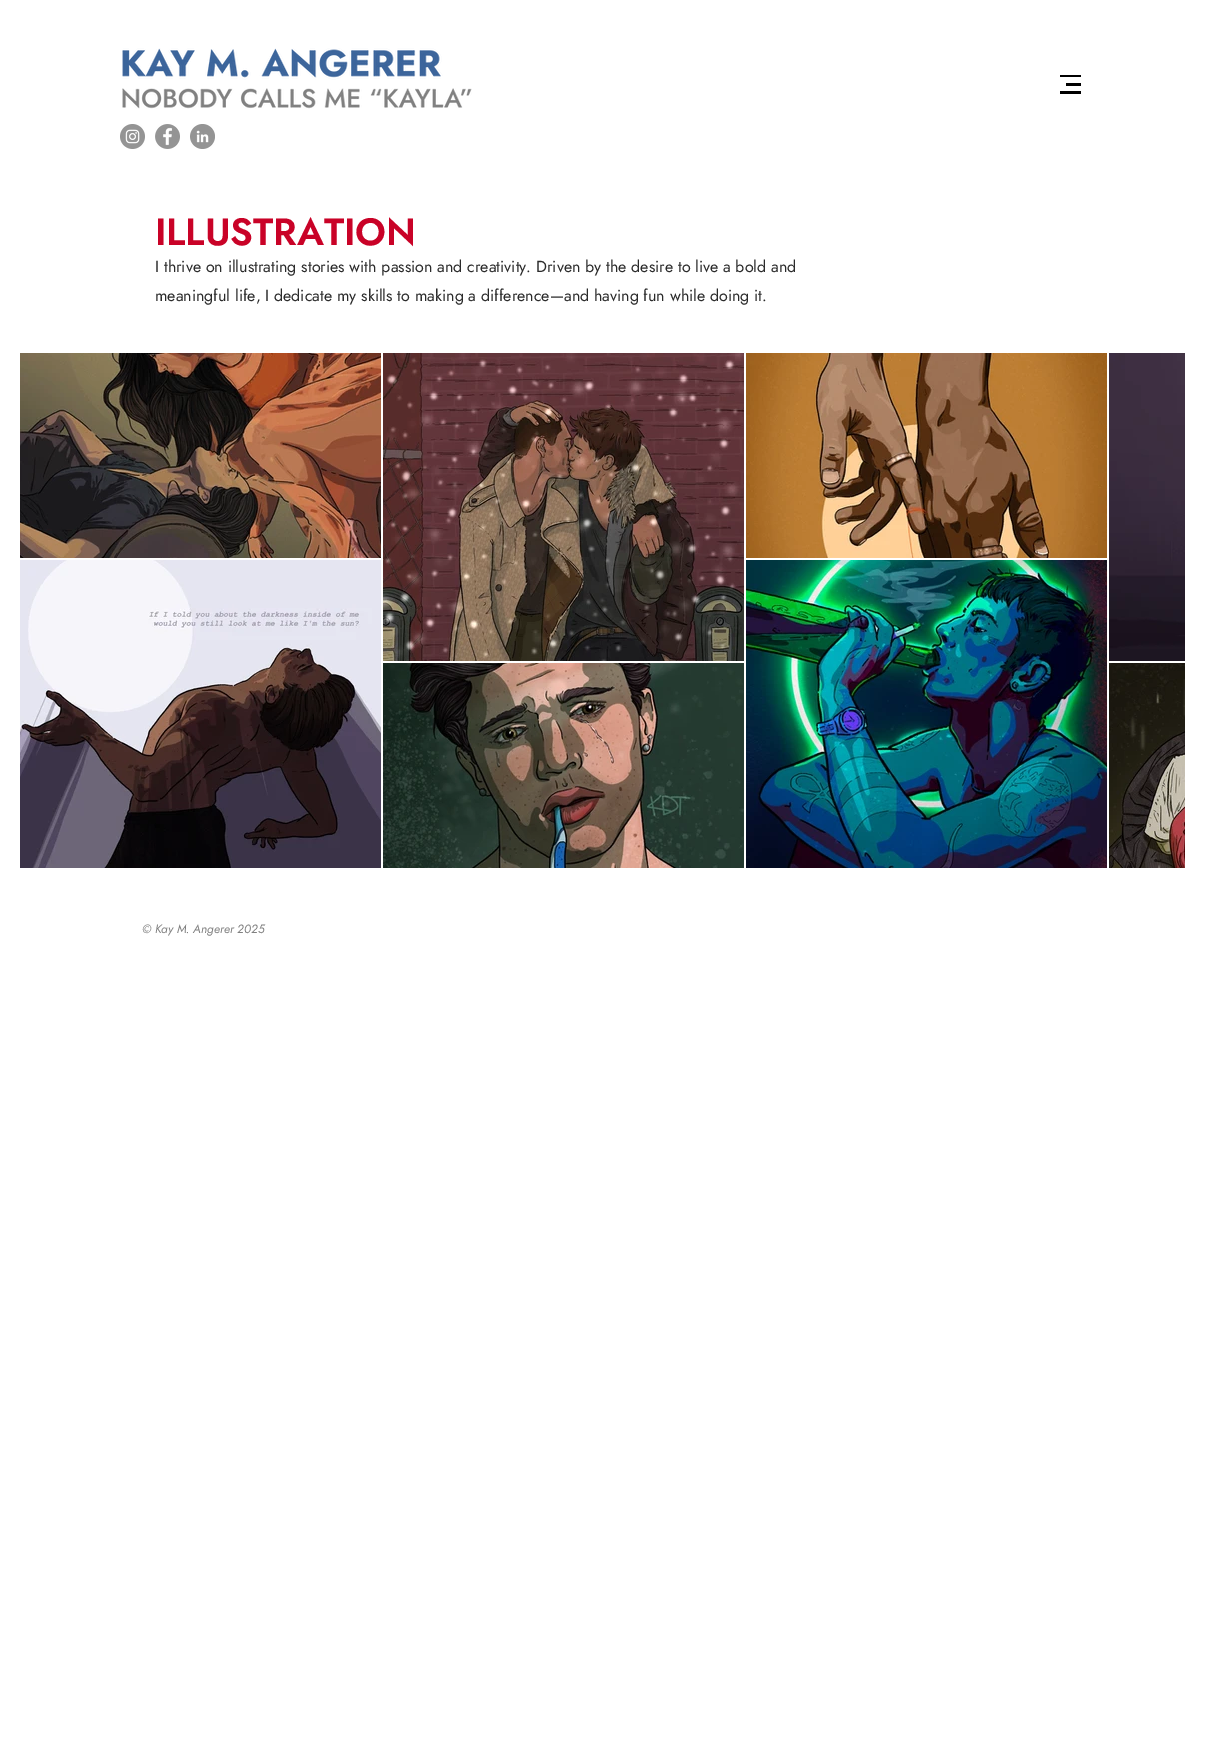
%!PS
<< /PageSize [1205 1762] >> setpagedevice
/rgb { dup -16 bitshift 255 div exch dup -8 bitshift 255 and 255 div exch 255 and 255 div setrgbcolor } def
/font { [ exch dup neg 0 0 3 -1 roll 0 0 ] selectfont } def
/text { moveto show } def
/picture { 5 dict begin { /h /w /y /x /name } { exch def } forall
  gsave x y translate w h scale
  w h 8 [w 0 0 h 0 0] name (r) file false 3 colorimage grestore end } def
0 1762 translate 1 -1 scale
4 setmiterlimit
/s1 { /Jost-SemiBold 38 font 16#C90227 rgb } def
/s2 { /Jost-Regular 16 font 16#2B2B2B rgb } def
/s3 { /Jost-Italic 12 font 16#808080 rgb } def
16#FFFFFF rgb
0 0 1205 1762 rectfill
(pic1.raw) 122 48 350 61 picture
16#000000 rgb
1060 75 21 2 rectfill
1066 83 15 3 rectfill
1060 91 21 3 rectfill
(pic2.raw) 120 124 25 25 picture
(pic3.raw) 155 124 25 25 picture
(pic4.raw) 190 124 25 25 picture
s1
(ILLUSTRATION) 155 245 text
s2
(I thrive on illustrating stories with passion and creativity. Driven by the desire to live a bold and) 155 272 text
(meaningful life, I dedicate my skills to making a difference—and having fun while doing it.) 155 301 text
(pic5.raw) 20 353 361 205 picture
(pic6.raw) 20 560 361 308 picture
(pic7.raw) 383 353 361 308 picture
(pic8.raw) 383 663 361 205 picture
(pic9.raw) 746 353 361 205 picture
(pic10.raw) 746 560 361 308 picture
(pic11.raw) 1109 353 76 308 picture
(pic12.raw) 1109 663 76 205 picture
s3
(© Kay M. Angerer 2025) 142 933 text
showpage
